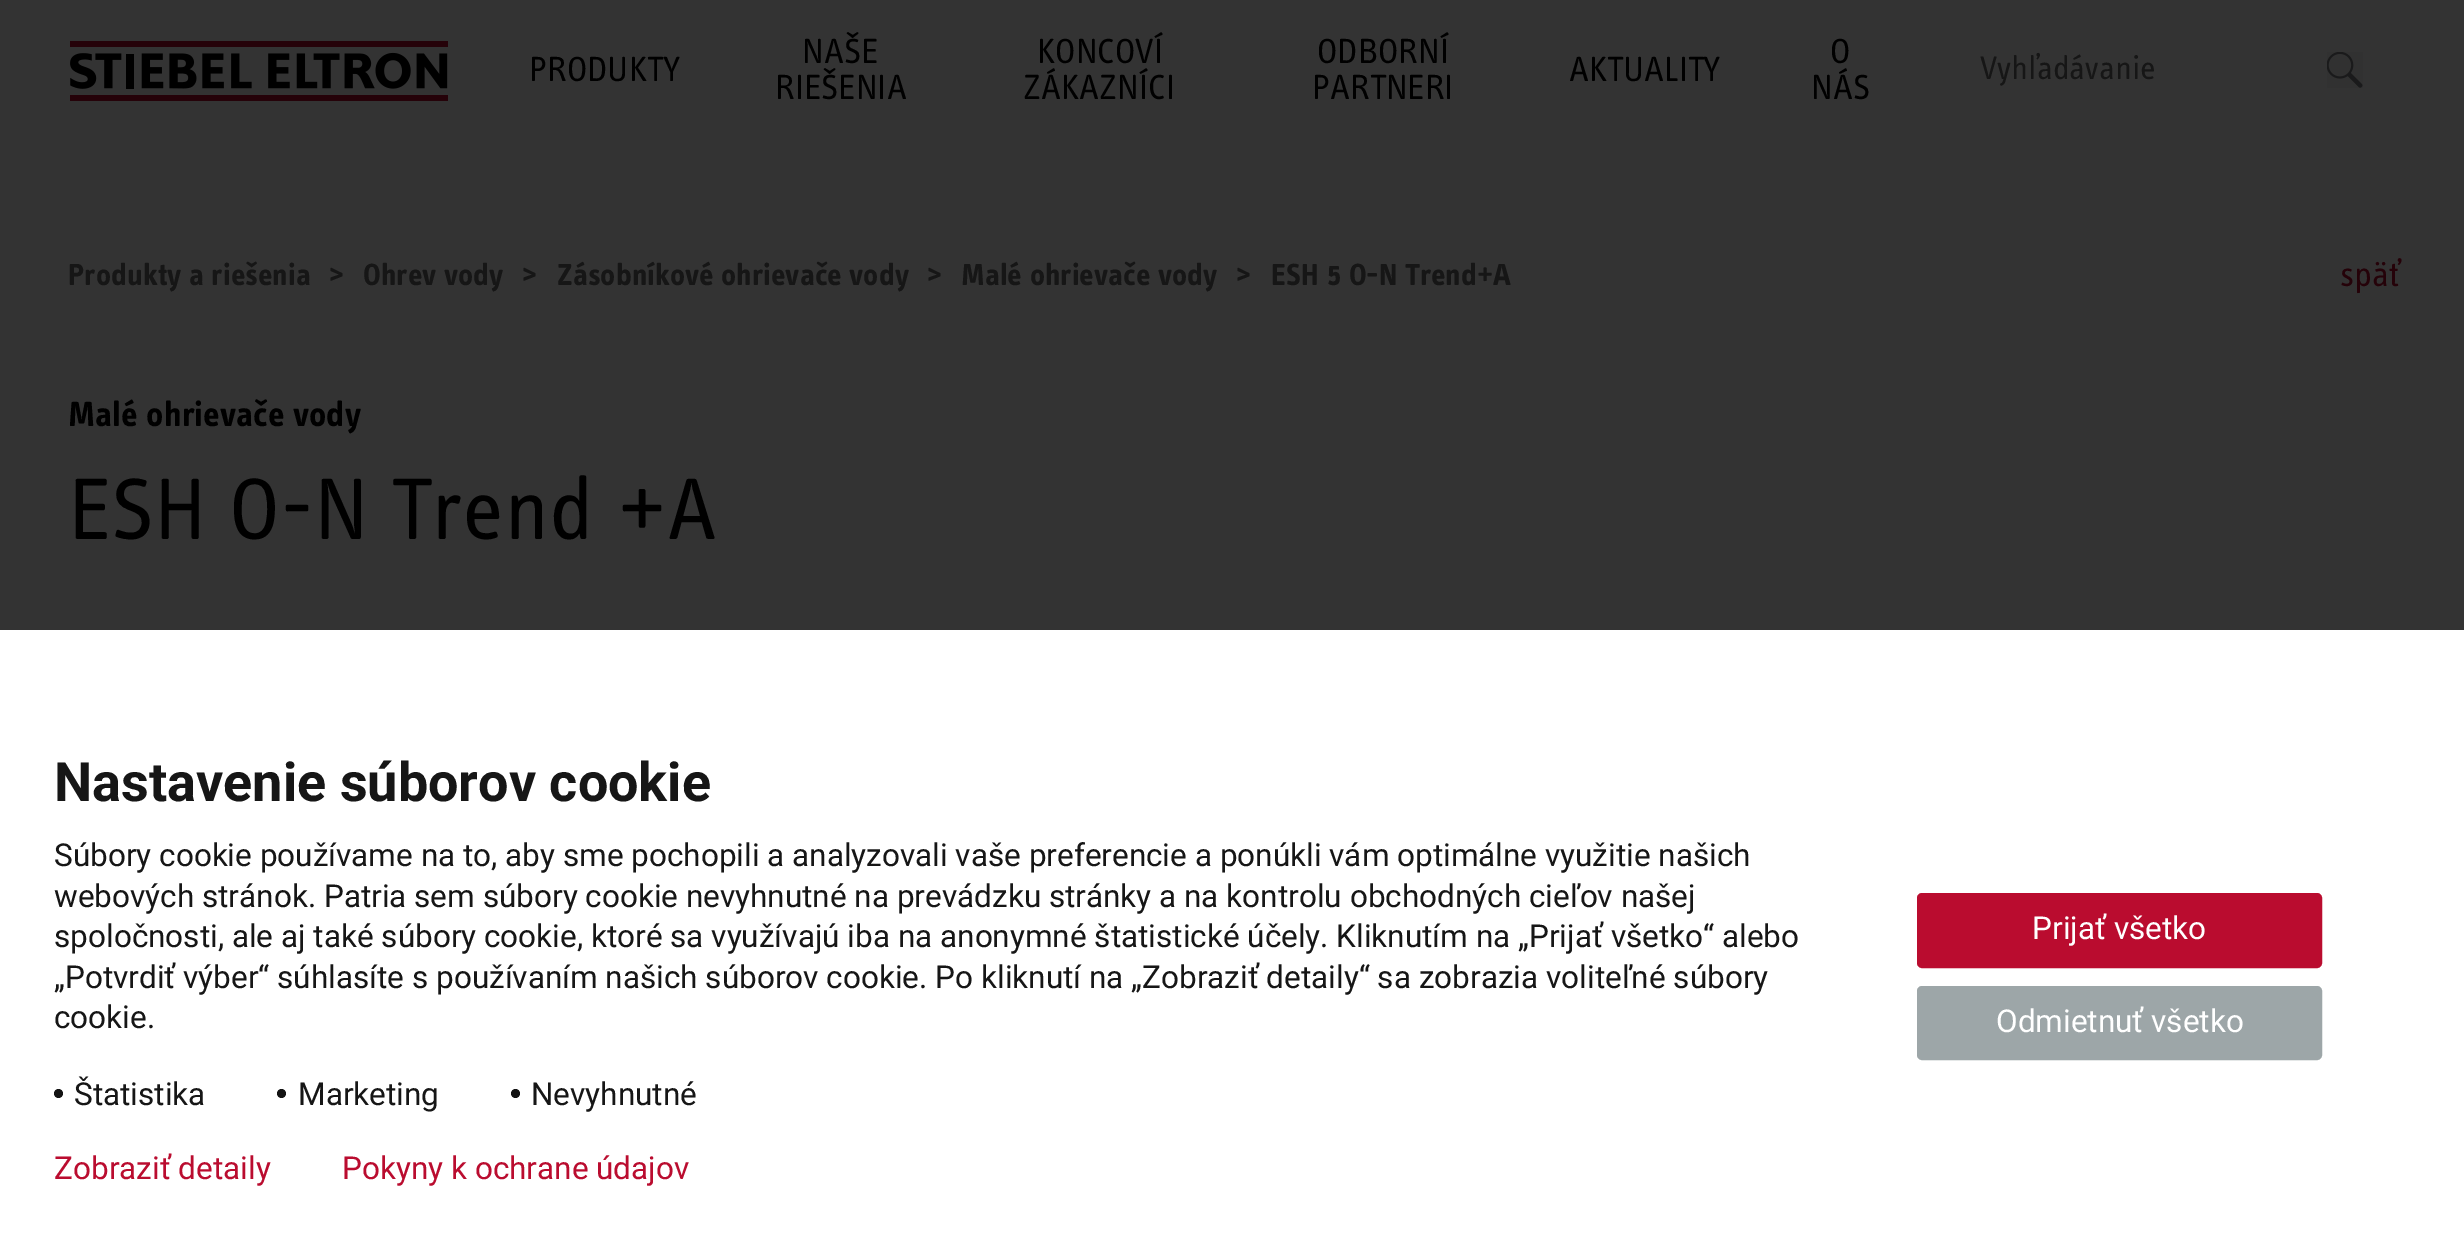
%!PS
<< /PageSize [2464 1239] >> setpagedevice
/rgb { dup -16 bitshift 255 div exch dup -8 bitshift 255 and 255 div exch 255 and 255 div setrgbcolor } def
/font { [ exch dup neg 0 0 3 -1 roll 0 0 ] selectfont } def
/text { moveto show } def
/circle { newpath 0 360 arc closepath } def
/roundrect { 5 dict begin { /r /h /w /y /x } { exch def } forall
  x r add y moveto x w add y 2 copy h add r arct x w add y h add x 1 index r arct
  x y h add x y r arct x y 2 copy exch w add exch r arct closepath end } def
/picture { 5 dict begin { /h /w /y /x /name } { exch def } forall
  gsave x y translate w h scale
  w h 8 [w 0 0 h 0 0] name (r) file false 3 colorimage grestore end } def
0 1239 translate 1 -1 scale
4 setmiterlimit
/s1 { /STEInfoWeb-Regular 36 font 16#000000 rgb } def
/s2 { /STEInfoWeb-Regular 33.75 font 16#161616 rgb } def
/s3 { /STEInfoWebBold-Bold 31.5 font 16#161616 rgb } def
/s4 { /STEInfoWeb-Regular 36 font 16#250209 rgb } def
/s5 { /STEInfoWebBold-Bold 36 font 16#000000 rgb } def
/s6 { /STEInfoWeb-Regular 90 font 16#000000 rgb } def
/s7 { /Roboto-Bold 54 font 16#161616 rgb } def
/s8 { /Roboto-Regular 31.5 font 16#161616 rgb } def
/s9 { /Roboto-Regular 31.5 font 16#FFFFFF rgb } def
/s10 { /Roboto-Regular 31.5 font 16#BA0C2F rgb } def
16#333333 rgb
0 0 2464 1239 rectfill
(pic1.raw) 70 41 378 60 picture
s1
(PRODUKTY) 529 81 text
(NAŠE) 802 63 text
(RIEŠENIA) 775 99 text
(KONCOVÍ) 1037 63 text
(ZÁKAZNÍCI) 1023 99 text
(ODBORNÍ) 1317 63 text
(PARTNERI) 1312 99 text
(AKTUALITY) 1569 81 text
(O) 1830 63 text
(NÁS) 1811 99 text
s2
(Vyhľadávanie) 1980 79 text
(pic2.raw) 2327 52 36 36 picture
s3
(Produkty a riešenia) 68 285 text
(>) 329 285 text
(Ohrev vody) 363 285 text
(>) 522 285 text
(Zásobníkové ohrievače vody) 557 285 text
(>) 927 285 text
(Malé ohrievače vody) 961 285 text
(>) 1236 285 text
(ESH 5 O-N Trend+A) 1271 285 text
s4
(späť) 2340 286 text
s5
(Malé ohrievače vody) 68 426 text
s6
(ESH O-N Trend +A) 68 539 text
16#FFFFFF rgb
0 630 2464 609 rectfill
s7
(Nastavenie súborov cookie) 54 801 text
s8
(Súbory cookie používame na to, aby sme pochopili a analyzovali vaše preferencie a ponúkli vám optimálne využitie našich) 54 866 text
(webových stránok. Patria sem súbory cookie nevyhnutné na prevádzku stránky a na kontrolu obchodných cieľov našej) 54 907 text
(spoločnosti, ale aj také súbory cookie, ktoré sa využívajú iba na anonymné štatistické účely. Kliknutím na „Prijať všetko“ alebo) 54 947 text
(„Potvrdiť výber“ súhlasíte s používaním našich súborov cookie. Po kliknutí na „Zobraziť detaily“ sa zobrazia voliteľné súbory) 54 988 text
(cookie.) 54 1028 text
16#131313 rgb
58.5 1093.5 4.5 circle fill
s8
(Štatistika) 74 1105 text
16#131313 rgb
281.5 1093.5 4.5 circle fill
s8
(Marketing) 298 1105 text
16#131313 rgb
515.5 1093.5 4.5 circle fill
s8
(Nevyhnutné) 531 1105 text
16#BA0C2F rgb
1918 894 403 73 4 roundrect gsave fill grestore
2 setlinewidth
stroke
s9
(Prijať všetko) 2032 939 text
16#9DA6A8 rgb
1918 987 403 72 4 roundrect gsave fill grestore
stroke
s9
(Odmietnuť všetko) 1996 1032 text
s10
(Zobraziť detaily) 54 1179 text
(Pokyny k ochrane údajov) 342 1179 text
showpage
